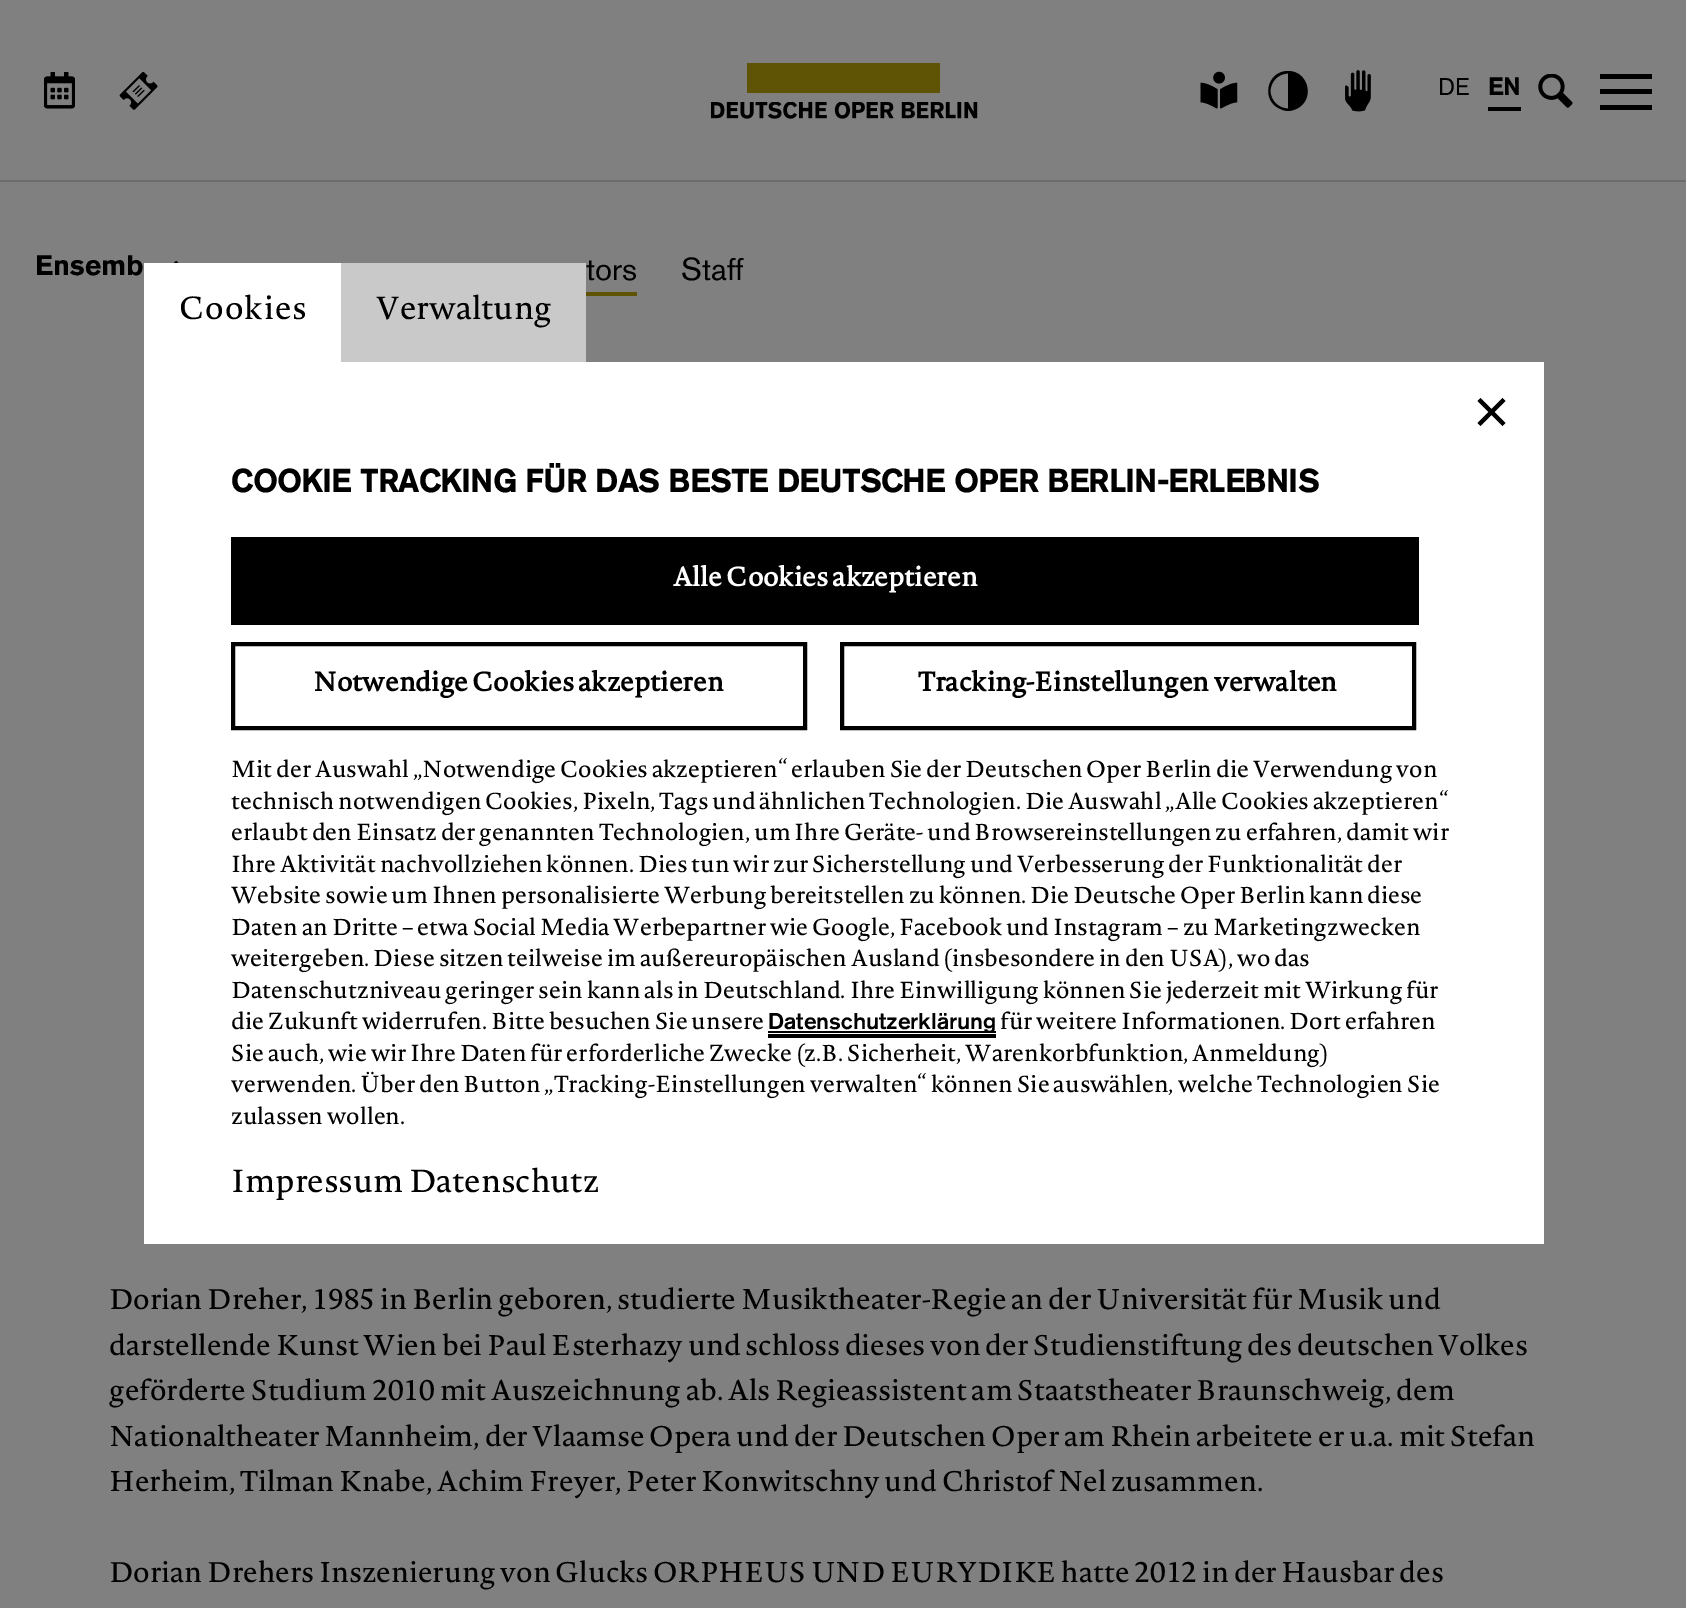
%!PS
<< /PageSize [1686 1608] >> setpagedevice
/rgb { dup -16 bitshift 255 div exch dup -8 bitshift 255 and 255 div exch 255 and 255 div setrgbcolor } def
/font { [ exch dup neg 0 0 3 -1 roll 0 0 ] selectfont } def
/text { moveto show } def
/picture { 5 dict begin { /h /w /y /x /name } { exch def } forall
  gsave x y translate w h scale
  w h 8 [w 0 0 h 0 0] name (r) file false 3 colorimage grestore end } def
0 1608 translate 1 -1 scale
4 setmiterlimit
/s1 { /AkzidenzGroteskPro-Regular 24 font 16#000000 rgb } def
/s2 { /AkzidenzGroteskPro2-Bold 24 font 16#000000 rgb } def
/s3 { /AkzidenzGroteskPro-Bold 28 font 16#000000 rgb } def
/s4 { /AkzidenzGroteskPro-Regular 31.5 font 16#000000 rgb } def
/s5 { /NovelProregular-Regular 28 font 16#000000 rgb } def
/s6 { /NovelProregular-Regular 31.5 font 16#000000 rgb } def
/s7 { /AkzidenzGroteskPro2-Bold 31.5 font 16#000000 rgb } def
/s8 { /NovelProregular-Bold 26.25 font 16#FFFFFF rgb } def
/s9 { /NovelProregular-Bold 26.25 font 16#000000 rgb } def
/s10 { /NovelProregular-Regular 22.75 font 16#000000 rgb } def
/s11 { /AkzidenzGroteskPro-Medium 22.75 font 16#000000 rgb } def
16#808080 rgb
0 0 1686 1608 rectfill
16#6C6C6C rgb
0 180 1686 2 rectfill
(pic1.raw) 44 72 31 37 picture
(pic2.raw) 119 72 39 38 picture
16#5F5305 rgb
747 63 193 30 rectfill
(pic3.raw) 711 102 267 17 picture
(pic4.raw) 1200 71 38 38 picture
16#000000 rgb
1288 71 moveto 1309 71 1315.5 100.5 1296 109 curveto 1294 110 1290.5 111 1288 111 curveto 1284.5 110.5 1283.5 110.5 1280.5 109 curveto 1260.5 101 1266.5 71 1288 71 curveto closepath 1288 73.5 moveto 1278.5 73.5 1270.5 81.5 1270.5 91 curveto 1270.5 100.5 1278.5 108.5 1288 108.5 curveto closepath fill
(pic5.raw) 1345 70 26 42 picture
s1
(DE) 1438 95 text
1488 107 33 4 rectfill
s2
(EN) 1488 95 text
(pic6.raw) 1538 74 35 34 picture
1600 74 52 5 rectfill
1600 89 52 5 rectfill
1600 105 52 5 rectfill
s3
(Ensemb) 35 275 text
(pic7.raw) 173 260 6 3 picture
s4
(tors) 586 280 text
16#5F5305 rgb
586 292 51 4 rectfill
s4
(Staff) 681 280 text
s5
(Dorian Dreher, 1985 in Berlin geboren, studierte Musiktheater-Regie an der Universität für Musik und) 109 1309 text
(darstellende Kunst Wien bei Paul Esterhazy und schloss dieses von der Studienstiftung des deutschen Volkes) 109 1355 text
(geförderte Studium 2010 mit Auszeichnung ab. Als Regieassistent am Staatstheater Braunschweig, dem) 109 1400 text
(Nationaltheater Mannheim, der Vlaamse Opera und der Deutschen Oper am Rhein arbeitete er u.a. mit Stefan) 109 1446 text
(Herheim, Tilman Knabe, Achim Freyer, Peter Konwitschny und Christof Nel zusammen.) 109 1491 text
(Dorian Drehers Inszenierung von Glucks ORPHEUS UND EURYDIKE hatte 2012 in der Hausbar des) 109 1582 text
16#FFFFFF rgb
144 263 197 99 rectfill
/NovelProregular-Regular 31.5 font
16#000000 rgb
179 319 moveto 1 0 (Cookies) ashow
16#C9C9C9 rgb
341 263 245 99 rectfill
s6
(Verwaltung) 376 319 text
16#FFFFFF rgb
144 362 1400 882 rectfill
16#000000 rgb
3.9 setlinewidth
1479 424.5 moveto 1504 399.5 lineto 1479 399.5 moveto 1504 424.5 lineto stroke
s7
(COOKIE TRACKING FÜR DAS BESTE DEUTSCHE OPER BERLIN-ERLEBNIS) 231 492 text
231 537 1188 88 rectfill
s8
(Alle Cookies akzeptieren) 673 586 text
16#000000 rgb
4 setlinewidth
233 644 572 84 rectstroke
(Notwendige Cookies akzeptieren) 313 691 text
842 644 572 84 rectstroke
(Tracking-Einstellungen verwalten) 918 691 text
s10
(Mit der Auswahl „Notwendige Cookies akzeptieren“ erlauben Sie der Deutschen Oper Berlin die Verwendung von) 231 777 text
(technisch notwendigen Cookies, Pixeln, Tags und ähnlichen Technologien. Die Auswahl „Alle Cookies akzeptieren“) 231 809 text
(erlaubt den Einsatz der genannten Technologien, um Ihre Geräte- und Browsereinstellungen zu erfahren, damit wir) 231 840 text
(Ihre Aktivität nachvollziehen können. Dies tun wir zur Sicherstellung und Verbesserung der Funktionalität der) 231 872 text
(Website sowie um Ihnen personalisierte Werbung bereitstellen zu können. Die Deutsche Oper Berlin kann diese) 231 903 text
(Daten an Dritte – etwa Social Media Werbepartner wie Google, Facebook und Instagram – zu Marketingzwecken) 231 935 text
(weitergeben. Diese sitzen teilweise im außereuropäischen Ausland \(insbesondere in den USA\), wo das) 231 966 text
(Datenschutzniveau geringer sein kann als in Deutschland. Ihre Einwilligung können Sie jederzeit mit Wirkung für) 231 998 text
(die Zukunft widerrufen. Bitte besuchen Sie unsere) 231 1029 text
768 1031 228 2 rectfill
s11
(Datenschutzerklärung) 768 1029 text
768 1034 228 4 rectfill
s10
(für weitere Informationen. Dort erfahren) 1000 1029 text
(Sie auch, wie wir Ihre Daten für erforderliche Zwecke \(z.B. Sicherheit, Warenkorbfunktion, Anmeldung\)) 231 1061 text
(verwenden. Über den Button „Tracking-Einstellungen verwalten“ können Sie auswählen, welche Technologien Sie) 231 1092 text
(zulassen wollen.) 231 1124 text
s6
(Impressum Datenschutz) 231 1192 text
showpage
